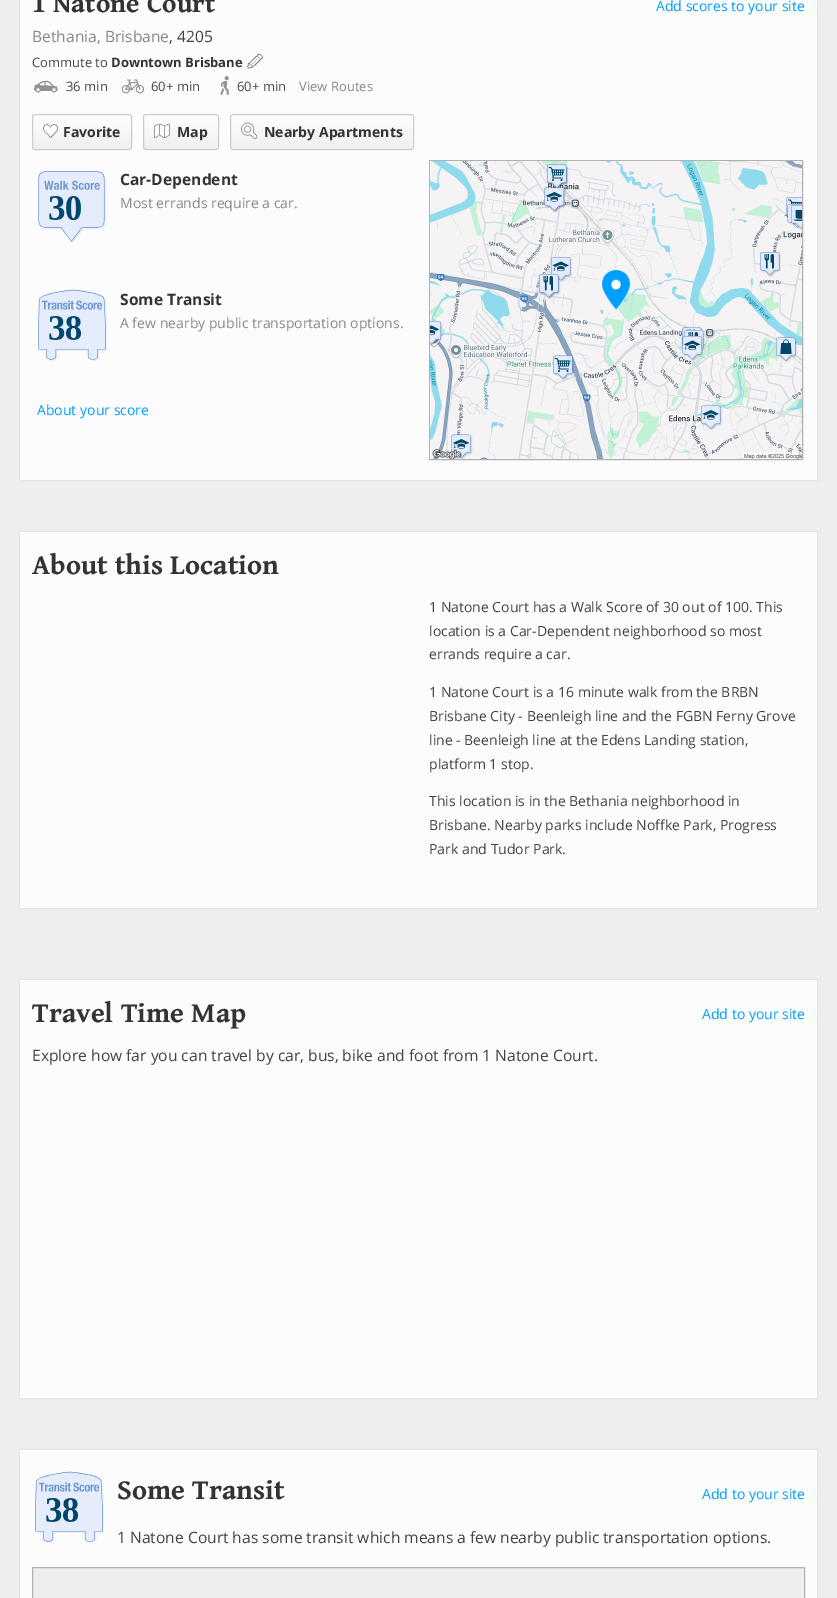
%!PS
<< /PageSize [837 1598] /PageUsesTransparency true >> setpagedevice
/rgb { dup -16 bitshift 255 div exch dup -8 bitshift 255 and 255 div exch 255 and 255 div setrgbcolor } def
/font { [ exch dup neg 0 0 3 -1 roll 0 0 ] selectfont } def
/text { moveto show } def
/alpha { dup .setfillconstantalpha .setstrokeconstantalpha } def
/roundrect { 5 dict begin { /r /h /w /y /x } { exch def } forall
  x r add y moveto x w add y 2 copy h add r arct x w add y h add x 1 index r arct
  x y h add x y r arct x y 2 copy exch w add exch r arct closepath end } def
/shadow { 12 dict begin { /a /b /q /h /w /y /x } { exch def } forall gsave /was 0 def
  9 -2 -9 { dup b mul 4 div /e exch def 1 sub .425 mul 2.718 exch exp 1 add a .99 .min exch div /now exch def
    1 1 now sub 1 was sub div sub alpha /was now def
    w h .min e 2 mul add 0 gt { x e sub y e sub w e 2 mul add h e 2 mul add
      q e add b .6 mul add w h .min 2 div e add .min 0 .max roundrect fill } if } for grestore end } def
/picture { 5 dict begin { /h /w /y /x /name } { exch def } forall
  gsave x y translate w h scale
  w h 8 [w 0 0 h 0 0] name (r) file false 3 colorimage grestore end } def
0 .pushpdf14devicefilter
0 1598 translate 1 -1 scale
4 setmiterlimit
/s1 { /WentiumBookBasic-Bold 27.25 font 16#333333 rgb } def
/s2 { /OpenSans-Regular 15.6 font 16#888888 rgb } def
/s3 { /OpenSans-Regular 15.6 font 16#444444 rgb } def
/s4 { /OpenSans-Regular 14 font 16#009EFF rgb } def
/s5 { /OpenSans-Regular 13 font 16#444444 rgb } def
/s6 { /OpenSans-Bold 13 font 16#333333 rgb } def
/s7 { /OpenSans-Regular 13 font 16#888888 rgb } def
/s8 { /OpenSans-Bold 14 font 16#333333 rgb } def
/s9 { /OpenSans-Bold 15.6 font 16#333333 rgb } def
/s10 { /OpenSans-Regular 14 font 16#888888 rgb } def
/s11 { /WentiumBookBasic-Bold 28.25 font 16#333333 rgb } def
/s12 { /OpenSans-Regular 14 font 16#444444 rgb } def
16#EEEEEE rgb
0 0 837 1598 rectfill
16#E2E2E2 rgb
19 -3 799 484 0 1 1 shadow
16#FDFCFC rgb
20 0 797 480 rectfill
s1
(1 Natone Court) 32 12 text
s2
(Bethania, Brisbane) 32 42 text
s3
(, 4205) 169 42 text
s4
(Add scores to your site) 656 11 text
s5
(Commute to) 32 67 text
s6
(Downtown Brisbane) 111 67 text
(pic1.raw) 247 53 17 16 picture
(pic2.raw) 33 80 25 13 picture
s5
(36 min) 66 91 text
(pic3.raw) 121 79 23 15 picture
(60+ min) 151 91 text
(pic4.raw) 220 76 9 19 picture
(60+ min) 237 91 text
s7
(View Routes) 299 91 text
gsave
32 114 100 36 3 roundrect clip newpath
gsave 32 115 moveto 132 115 lineto 132 149 lineto 32 149 lineto closepath clip newpath
<< /ShadingType 2 /ColorSpace /DeviceRGB /Coords [82 115 82 149] /Extend [true true] /Function << /FunctionType 2 /Domain [0 1] /C0 [1 1 1] /C1 [0.937 0.937 0.933] /N 1 >> >> shfill grestore
grestore
16#CCCCCC rgb
32.5 114.5 99 35 2.5 roundrect stroke
(pic5.raw) 43 124 15 14 picture
s8
(Favorite) 63 137 text
gsave
143 114 76 36 3 roundrect clip newpath
gsave 143 115 moveto 219 115 lineto 219 149 lineto 143 149 lineto closepath clip newpath
<< /ShadingType 2 /ColorSpace /DeviceRGB /Coords [181 115 181 149] /Extend [true true] /Function << /FunctionType 2 /Domain [0 1] /C0 [1 1 1] /C1 [0.937 0.937 0.933] /N 1 >> >> shfill grestore
grestore
16#CCCCCC rgb
143.5 114.5 75 35 2.5 roundrect stroke
(pic6.raw) 154 123 17 15 picture
s8
(Map) 177 137 text
gsave
230 114 184 36 3 roundrect clip newpath
gsave 230 115 moveto 414 115 lineto 414 149 lineto 230 149 lineto closepath clip newpath
<< /ShadingType 2 /ColorSpace /DeviceRGB /Coords [322 115 322 149] /Extend [true true] /Function << /FunctionType 2 /Domain [0 1] /C0 [1 1 1] /C1 [0.937 0.937 0.933] /N 1 >> >> shfill grestore
grestore
16#CCCCCC rgb
230.5 114.5 183 35 2.5 roundrect stroke
(pic7.raw) 241 122 17 17 picture
s8
(Nearby Apartments) 264 137 text
(pic8.raw) 38 171 68 72 picture
s9
(Car-Dependent) 120 185 text
s10
(Most errands require a car.) 120 208 text
(pic9.raw) 38 289 69 72 picture
s9
(Some Transit) 120 305 text
s10
(A few nearby public transportation options.) 120 328 text
s4
(About your score) 37 415 text
16#B1B1B1 rgb
429.5 160.5 373 299 rectstroke
(pic10.raw) 430 161 372 298 picture
(pic11.raw) 602 269 29 41 picture
16#E2E2E2 rgb
19 531 799 378 0 1 1 shadow
16#FDFCFC rgb
20 532 797 376 rectfill
s11
(About this Location) 32 574 text
s12
(1 Natone Court has a Walk Score of 30 out of 100. This) 429 612 text
(location is a Car-Dependent neighborhood so most) 429 636 text
(errands require a car.) 429 659 text
(1 Natone Court is a 16 minute walk from the BRBN) 429 697 text
(Brisbane City - Beenleigh line and the FGBN Ferny Grove) 429 721 text
(line - Beenleigh line at the Edens Landing station,) 429 745 text
(platform 1 stop.) 429 769 text
(This location is in the Bethania neighborhood in) 429 806 text
(Brisbane. Nearby parks include Noffke Park, Progress) 429 830 text
(Park and Tudor Park.) 429 854 text
16#E2E2E2 rgb
19 979 799 420 0 1 1 shadow
16#FDFCFC rgb
20 980 797 418 rectfill
s11
(Travel Time Map) 32 1022 text
s4
(Add to your site) 702 1019 text
s3
(Explore how far you can travel by car, bus, bike and foot from 1 Natone Court.) 32 1061 text
16#E2E2E2 rgb
19 1449 799 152 0 1 1 shadow
16#FDFCFC rgb
20 1450 797 148 rectfill
(pic9.raw) 35 1471 69 72 picture
s11
(Some Transit) 117 1499 text
s4
(Add to your site) 702 1499 text
s3
(1 Natone Court has some transit which means a few nearby public transportation options.) 117 1543 text
16#EEEEEE rgb
32.5 1567.5 moveto 804.5 1567.5 lineto 804.5 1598.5 lineto 32.5 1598.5 lineto closepath gsave fill grestore
16#B1B1B1 rgb
stroke
.poppdf14devicefilter showpage
